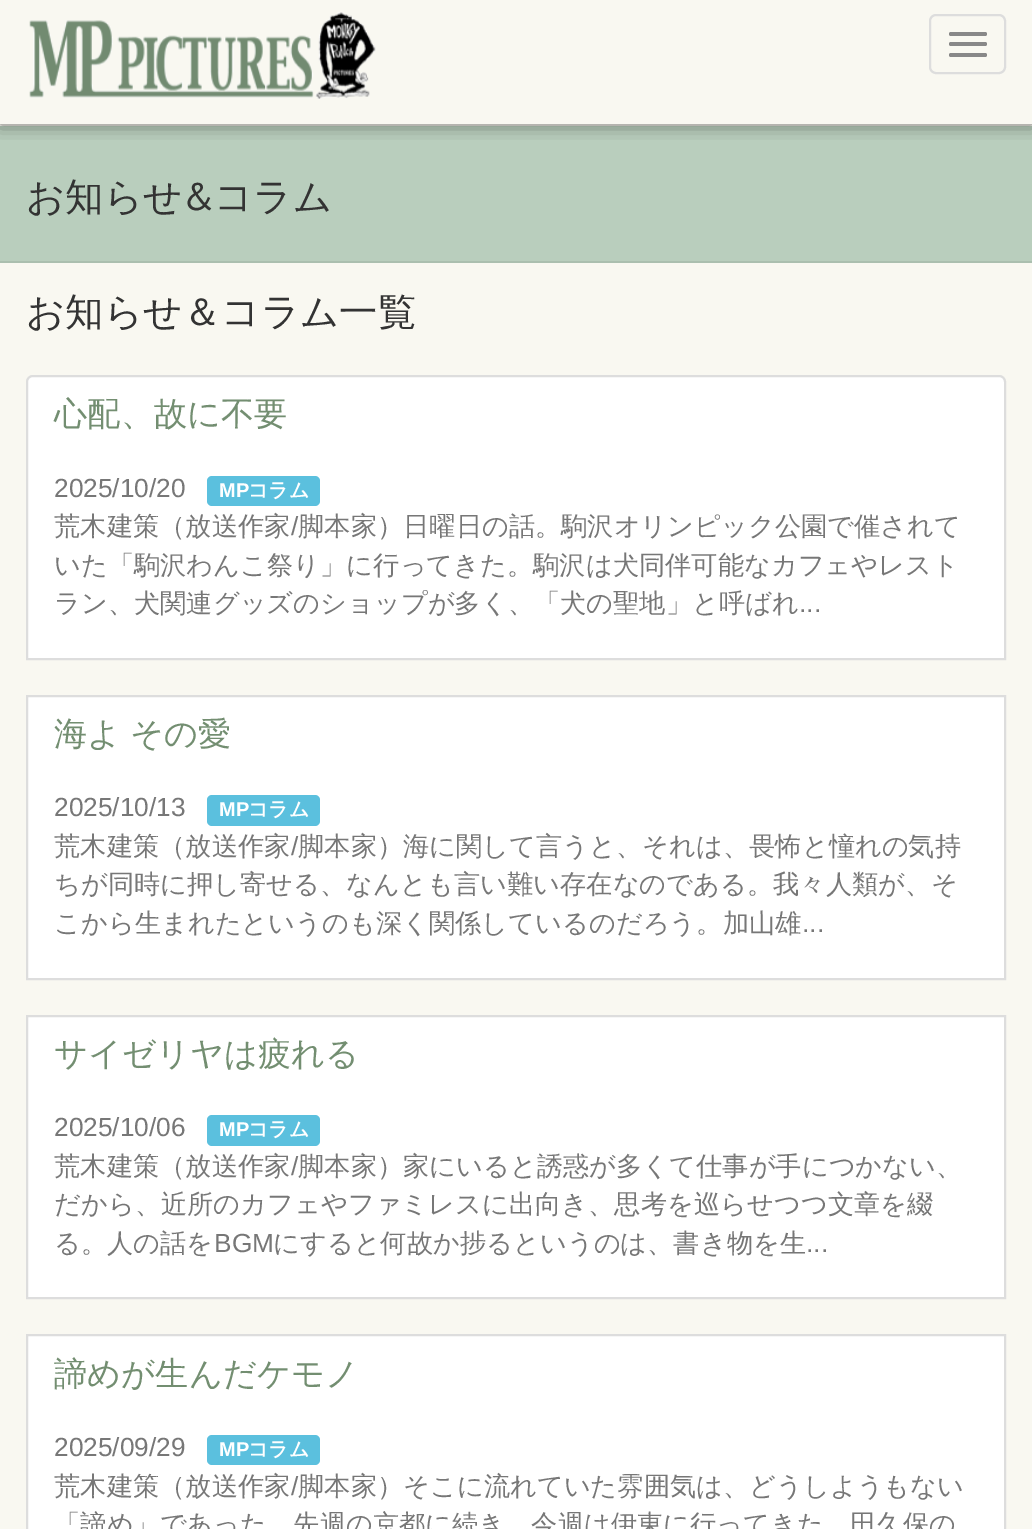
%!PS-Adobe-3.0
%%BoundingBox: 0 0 1032 1529
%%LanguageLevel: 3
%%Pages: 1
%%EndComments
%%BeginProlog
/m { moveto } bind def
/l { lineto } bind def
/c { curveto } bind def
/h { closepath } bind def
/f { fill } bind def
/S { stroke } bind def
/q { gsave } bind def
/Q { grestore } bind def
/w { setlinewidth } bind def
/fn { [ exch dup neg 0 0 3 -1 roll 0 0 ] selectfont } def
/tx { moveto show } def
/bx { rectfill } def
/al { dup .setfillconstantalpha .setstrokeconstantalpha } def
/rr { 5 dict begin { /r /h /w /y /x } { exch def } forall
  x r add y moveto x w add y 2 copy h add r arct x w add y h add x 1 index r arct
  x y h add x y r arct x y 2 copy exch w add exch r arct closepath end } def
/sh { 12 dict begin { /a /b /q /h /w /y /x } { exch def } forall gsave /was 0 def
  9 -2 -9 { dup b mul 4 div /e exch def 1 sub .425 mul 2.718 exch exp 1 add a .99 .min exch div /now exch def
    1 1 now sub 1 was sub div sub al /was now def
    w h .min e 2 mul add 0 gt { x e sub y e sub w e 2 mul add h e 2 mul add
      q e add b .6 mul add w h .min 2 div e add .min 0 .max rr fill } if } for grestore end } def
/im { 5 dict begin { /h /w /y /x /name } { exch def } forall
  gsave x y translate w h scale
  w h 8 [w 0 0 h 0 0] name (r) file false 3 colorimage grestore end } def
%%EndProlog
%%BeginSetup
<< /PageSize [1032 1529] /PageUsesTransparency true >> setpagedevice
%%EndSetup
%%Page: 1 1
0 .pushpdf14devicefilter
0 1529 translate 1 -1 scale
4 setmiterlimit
0.976 0.973 0.945 setrgbcolor
0 0 1032 1529 bx
0.725 0.808 0.741 setrgbcolor
0 126 1032 135 bx
q
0 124 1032 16 rectclip
0 setgray
0 0 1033 124 0 9 0.54 sh
Q
(image0.raw) 29 12 347 87 im
0.867 setgray
2 w
930 15 75 58 6 rr S
0.533 setgray
949 32 38 4 2 rr f
949 42 38 4 2 rr f
949 53 38 4 2 rr f
0.671 0.749 0.686 setrgbcolor
0 261 1032 2 bx
/WenQuanYiZenHei-Medium 38.5 fn
0.2 setgray
(お知らせ) 26 210 tx
/PTSans-Regular 38.5 fn
(&) 183 210 tx
/WenQuanYiZenHei-Medium 38.5 fn
(コラム) 214 210 tx
(お知らせ＆コラム一覧) 26 325 tx
1 setgray
33 376 m 999 376 l 1002.5 376 1005 378.5 1005 382 c 1005 659 l 27 659 l 27 382 l 27 378.5 29.5 376 33 376 c h q f Q
0.867 setgray
S
/WenQuanYiZenHei-Medium 33.25 fn
0.451 0.557 0.443 setrgbcolor
(心配、故に不要) 54 425 tx
/LiberationSans-Regular 26.25 fn
0.467 setgray
(2025/10/20) 54 497 tx
0.357 0.753 0.871 setrgbcolor
207 476 113 30 5 rr f
/LiberationSans-Bold 20 fn
1 setgray
(MP) 219 497 tx
/WenQuanYiZenHei-Bold 20 fn
(コラム) 248 497 tx
/WenQuanYiZenHei-Medium 26.25 fn
0.467 setgray
(荒木建策（放送作家) 54 535 tx
/LiberationSans-Regular 26.25 fn
(/) 291 535 tx
/WenQuanYiZenHei-Medium 26.25 fn
(脚本家）日曜日の話。駒沢オリンピック公園で催されて) 298 535 tx
(いた「駒沢わんこ祭り」に行ってきた。駒沢は犬同伴可能なカフェやレスト) 54 574 tx
(ラン、犬関連グッズのショップが多く、「犬の聖地」と呼ばれ) 54 612 tx
/LiberationSans-Regular 26.25 fn
(...) 799 612 tx
1 setgray
27 696 m 1005 696 l 1005 979 l 27 979 l h q f Q
0.867 setgray
S
/WenQuanYiZenHei-Medium 33.25 fn
0.451 0.557 0.443 setrgbcolor
54 745 m -1 0 32 (海よ その愛) widthshow
/LiberationSans-Regular 26.25 fn
0.467 setgray
(2025/10/13) 54 816 tx
0.357 0.753 0.871 setrgbcolor
207 795 113 31 5 rr f
/LiberationSans-Bold 20 fn
1 setgray
(MP) 219 816 tx
/WenQuanYiZenHei-Bold 20 fn
(コラム) 248 816 tx
/WenQuanYiZenHei-Medium 26.25 fn
0.467 setgray
(荒木建策（放送作家) 54 855 tx
/LiberationSans-Regular 26.25 fn
(/) 291 855 tx
/WenQuanYiZenHei-Medium 26.25 fn
(脚本家）海に関して言うと、それは、畏怖と憧れの気持) 298 855 tx
(ちが同時に押し寄せる、なんとも言い難い存在なのである。我々人類が、そ) 54 893 tx
(こから生まれたというのも深く関係しているのだろう。加山雄) 54 932 tx
/LiberationSans-Regular 26.25 fn
(...) 802 932 tx
1 setgray
27 1016 m 1005 1016 l 1005 1298 l 27 1298 l h q f Q
0.867 setgray
S
/WenQuanYiZenHei-Medium 33.25 fn
0.451 0.557 0.443 setrgbcolor
(サイゼリヤは疲れる) 54 1065 tx
/LiberationSans-Regular 26.25 fn
0.467 setgray
(2025/10/06) 54 1136 tx
0.357 0.753 0.871 setrgbcolor
207 1115 113 31 5 rr f
/LiberationSans-Bold 20 fn
1 setgray
(MP) 219 1136 tx
/WenQuanYiZenHei-Bold 20 fn
(コラム) 248 1136 tx
/WenQuanYiZenHei-Medium 26.25 fn
0.467 setgray
(荒木建策（放送作家) 54 1175 tx
/LiberationSans-Regular 26.25 fn
(/) 291 1175 tx
/WenQuanYiZenHei-Medium 26.25 fn
(脚本家）家にいると誘惑が多くて仕事が手につかない、) 298 1175 tx
(だから、近所のカフェやファミレスに出向き、思考を巡らせつつ文章を綴) 54 1213 tx
(る。人の話を) 54 1252 tx
/LiberationSans-Regular 26.25 fn
(BGM) 214 1252 tx
/WenQuanYiZenHei-Medium 26.25 fn
(にすると何故か捗るというのは、書き物を生) 273 1252 tx
/LiberationSans-Regular 26.25 fn
(...) 806 1252 tx
1 setgray
27 1335 m 1005 1335 l 1005 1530 l 27 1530 l h q f Q
0.867 setgray
S
/WenQuanYiZenHei-Medium 33.25 fn
0.451 0.557 0.443 setrgbcolor
(諦めが生んだケモノ) 54 1385 tx
/LiberationSans-Regular 26.25 fn
0.467 setgray
(2025/09/29) 54 1456 tx
0.357 0.753 0.871 setrgbcolor
207 1435 113 30 5 rr f
/LiberationSans-Bold 20 fn
1 setgray
(MP) 219 1456 tx
/WenQuanYiZenHei-Bold 20 fn
(コラム) 248 1456 tx
/WenQuanYiZenHei-Medium 26.25 fn
0.467 setgray
(荒木建策（放送作家) 54 1495 tx
/LiberationSans-Regular 26.25 fn
(/) 291 1495 tx
/WenQuanYiZenHei-Medium 26.25 fn
(脚本家）そこに流れていた雰囲気は、どうしようもない) 298 1495 tx
(「諦め」であった。先週の京都に続き、今週は伊東に行ってきた。田久保の) 54 1533 tx
.poppdf14devicefilter showpage
%%EOF
